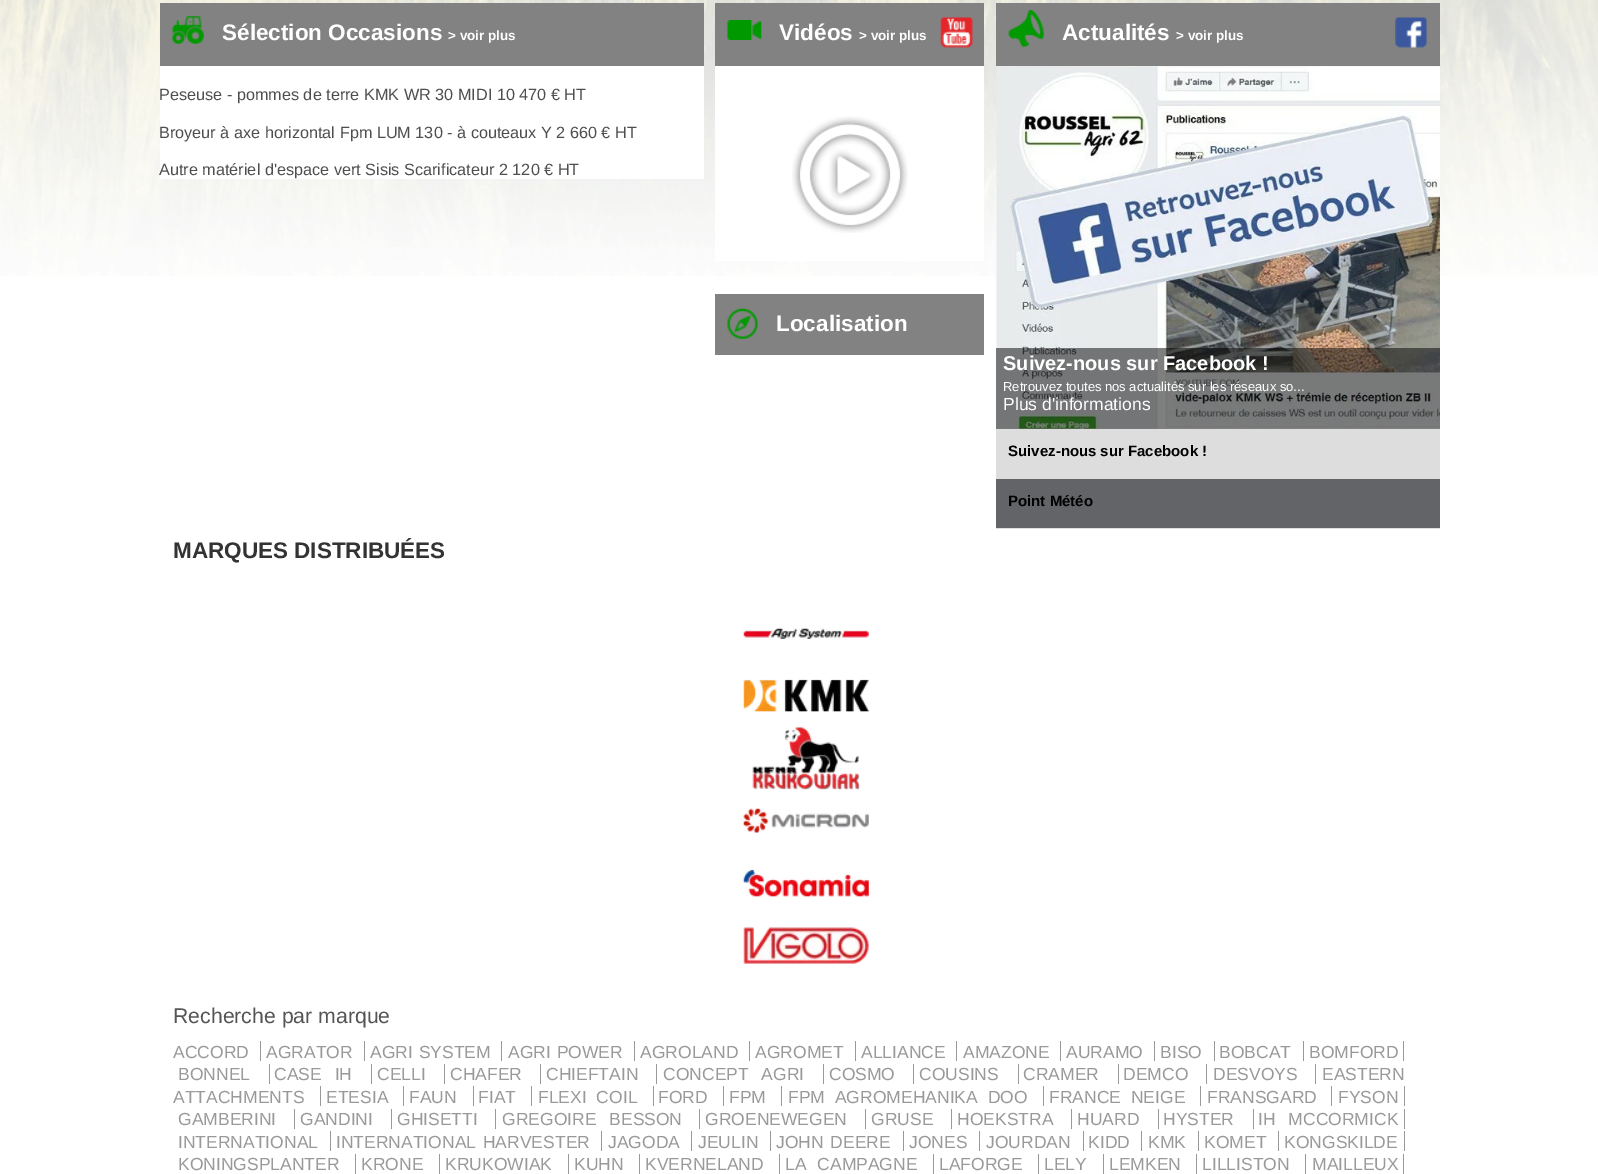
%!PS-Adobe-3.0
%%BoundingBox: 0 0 1598 1174
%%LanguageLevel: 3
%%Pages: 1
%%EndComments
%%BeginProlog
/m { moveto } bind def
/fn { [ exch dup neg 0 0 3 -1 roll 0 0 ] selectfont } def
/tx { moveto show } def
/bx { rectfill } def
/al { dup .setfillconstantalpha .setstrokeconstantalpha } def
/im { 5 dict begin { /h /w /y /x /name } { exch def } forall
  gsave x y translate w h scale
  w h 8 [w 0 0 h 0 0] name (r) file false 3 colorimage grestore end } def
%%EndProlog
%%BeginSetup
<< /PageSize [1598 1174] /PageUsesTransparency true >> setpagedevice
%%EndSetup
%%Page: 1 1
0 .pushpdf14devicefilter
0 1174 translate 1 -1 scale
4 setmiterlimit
1 setgray
0 0 1598 1174 bx
(image0.raw) 0 0 1598 276 im
0.51 setgray
160 3 544 63 bx
(image1.raw) 172 16 32 28 im
/LiberationSans-Bold 22.5 fn
1 setgray
(Sélection Occasions) 222 40 tx
/LiberationSans-Bold 13.5 fn
(> voir plus) 448 40 tx
160 66 544 113 bx
/LiberationSans-Regular 16.25 fn
0.306 setgray
(Peseuse - pommes de terre KMK WR 30 MIDI 10 470 € HT) 159 100 tx
(Broyeur à axe horizontal Fpm LUM 130 - à couteaux Y 2 660 € HT) 159 138 tx
(Autre matériel d'espace vert Sisis Scarificateur 2 120 € HT) 159 175 tx
0.51 setgray
715 3 269 63 bx
(image2.raw) 727 20 35 20 im
/LiberationSans-Bold 22.5 fn
1 setgray
(Vidéos) 779 40 tx
/LiberationSans-Bold 13.5 fn
(> voir plus) 859 40 tx
(image3.raw) 940 17 33 31 im
715 66 269 195 bx
(image4.raw) 792 116 116 117 im
0.51 setgray
715 294 269 61 bx
(image5.raw) 727 308 31 31 im
/LiberationSans-Bold 22.5 fn
1 setgray
(Localisation) 776 331 tx
0.51 setgray
996 3 444 63 bx
(image6.raw) 1008 10 36 38 im
1 setgray
(Actualités) 1062 40 tx
/LiberationSans-Bold 13.5 fn
(> voir plus) 1176 40 tx
(image7.raw) 1395 17 33 31 im
(image8.raw) 996 66 444 363 im
0.5 al
0 setgray
996 348 444 81 bx
/LiberationSans-Bold 20 fn
1 al
1 setgray
(Suivez-nous sur Facebook !) 1003 370 tx
/LiberationSans-Regular 13 fn
(Retrouvez toutes nos actualités sur les réseaux so...) 1003 391 tx
/LiberationSans-Regular 17.5 fn
(Plus d'informations) 1003 410 tx
0.867 setgray
996 429 444 50 bx
/LiberationSans-Bold 15 fn
0 setgray
(Suivez-nous sur Facebook !) 1008 456 tx
0.388 0.392 0.404 setrgbcolor
996 479 444 49 bx
0.871 setgray
996 528 444 1 bx
0 setgray
(Point Météo) 1008 506 tx
/LiberationSans-Bold 22.5 fn
0.2 setgray
(MARQUES DISTRIBUÉES) 173 558 tx
(image9.raw) 743 628 126 11 im
(image10.raw) 743 679 126 33 im
(image11.raw) 752 727 108 63 im
(image12.raw) 743 808 126 25 im
(image13.raw) 743 869 126 28 im
(image14.raw) 743 927 126 37 im
/LiberationSans-Regular 21.25 fn
0.333 setgray
(Recherche par marque) 173 1023 tx
/LiberationSans-Regular 17.5 fn
0.6 setgray
(ACCORD) 173 1058 tx
260 1041 1 20 bx
(AGRATOR) 266 1058 tx
364 1041 1 20 bx
370 1058 m 1 0 32 (AGRI SYSTEM) widthshow
501 1041 1 20 bx
508 1058 m 1 0 32 (AGRI POWER) widthshow
634 1041 1 20 bx
(AGROLAND) 640 1058 tx
749 1041 1 20 bx
(AGROMET) 755 1058 tx
855 1041 1 20 bx
(ALLIANCE) 861 1058 tx
956 1041 1 20 bx
(AMAZONE) 963 1058 tx
1060 1041 1 20 bx
(AURAMO) 1066 1058 tx
1154 1041 1 20 bx
(BISO) 1160 1058 tx
1214 1041 1 20 bx
(BOBCAT) 1219 1058 tx
1303 1041 1 20 bx
(BOMFORD) 1309 1058 tx
1403 1041 1 20 bx
(BONNEL) 178 1080 tx
269 1064 1 20 bx
274 1080 m 8 0 32 (CASE IH) widthshow
371 1064 1 20 bx
(CELLI) 377 1080 tx
444 1064 1 20 bx
(CHAFER) 450 1080 tx
540 1064 1 20 bx
(CHIEFTAIN) 546 1080 tx
656 1064 1 20 bx
663 1080 m 8 0 32 (CONCEPT AGRI) widthshow
823 1064 1 20 bx
(COSMO) 829 1080 tx
913 1064 1 20 bx
(COUSINS) 919 1080 tx
1018 1064 1 20 bx
(CRAMER) 1023 1080 tx
1118 1064 1 20 bx
(DEMCO) 1123 1080 tx
1206 1064 1 20 bx
(DESVOYS) 1213 1080 tx
1315 1064 1 20 bx
(EASTERN) 1322 1080 tx
(ATTACHMENTS) 173 1103 tx
320 1086 1 20 bx
(ETESIA) 326 1103 tx
403 1086 1 20 bx
(FAUN) 409 1103 tx
473 1086 1 20 bx
(FIAT) 478 1103 tx
531 1086 1 20 bx
538 1103 m 5 0 32 (FLEXI COIL) widthshow
653 1086 1 20 bx
(FORD) 658 1103 tx
723 1086 1 20 bx
(FPM) 729 1103 tx
781 1086 1 20 bx
788 1103 m 5 0 32 (FPM AGROMEHANIKA DOO) widthshow
1043 1086 1 20 bx
1049 1103 m 5 0 32 (FRANCE NEIGE) widthshow
1200 1086 1 20 bx
(FRANSGARD) 1207 1103 tx
1331 1086 1 20 bx
(FYSON) 1338 1103 tx
1404 1086 1 20 bx
(GAMBERINI) 178 1125 tx
294 1109 1 20 bx
(GANDINI) 300 1125 tx
391 1109 1 20 bx
(GHISETTI) 397 1125 tx
495 1109 1 20 bx
502 1125 m 8 0 32 (GREGOIRE BESSON) widthshow
699 1109 1 20 bx
(GROENEWEGEN) 705 1125 tx
865 1109 1 20 bx
(GRUSE) 871 1125 tx
951 1109 1 20 bx
(HOEKSTRA) 957 1125 tx
1071 1109 1 20 bx
(HUARD) 1077 1125 tx
1158 1109 1 20 bx
(HYSTER) 1163 1125 tx
1253 1109 1 20 bx
1258 1125 m 8 0 32 (IH MCCORMICK) widthshow
1404 1109 1 20 bx
(INTERNATIONAL) 178 1148 tx
330 1131 1 20 bx
336 1148 m 2 0 32 (INTERNATIONAL HARVESTER) widthshow
601 1131 1 20 bx
(JAGODA) 608 1148 tx
691 1131 1 20 bx
(JEULIN) 698 1148 tx
770 1131 1 20 bx
776 1148 m 2 0 32 (JOHN DEERE) widthshow
903 1131 1 20 bx
(JONES) 909 1148 tx
979 1131 1 20 bx
(JOURDAN) 986 1148 tx
1083 1131 1 20 bx
(KIDD) 1088 1148 tx
1141 1131 1 20 bx
(KMK) 1148 1148 tx
1198 1131 1 20 bx
(KOMET) 1204 1148 tx
1278 1131 1 20 bx
(KONGSKILDE) 1284 1148 tx
1404 1131 1 20 bx
(KONINGSPLANTER) 178 1170 tx
355 1154 1 20 bx
(KRONE) 361 1170 tx
439 1154 1 20 bx
(KRUKOWIAK) 445 1170 tx
568 1154 1 20 bx
(KUHN) 574 1170 tx
639 1154 1 20 bx
(KVERNELAND) 645 1170 tx
779 1154 1 20 bx
785 1170 m 6 0 32 (LA CAMPAGNE) widthshow
933 1154 1 20 bx
(LAFORGE) 939 1170 tx
1038 1154 1 20 bx
(LELY) 1044 1170 tx
1103 1154 1 20 bx
(LEMKEN) 1109 1170 tx
1196 1154 1 20 bx
(LILLISTON) 1202 1170 tx
1305 1154 1 20 bx
(MAILLEUX) 1312 1170 tx
1403 1154 1 20 bx
.poppdf14devicefilter showpage
%%EOF
